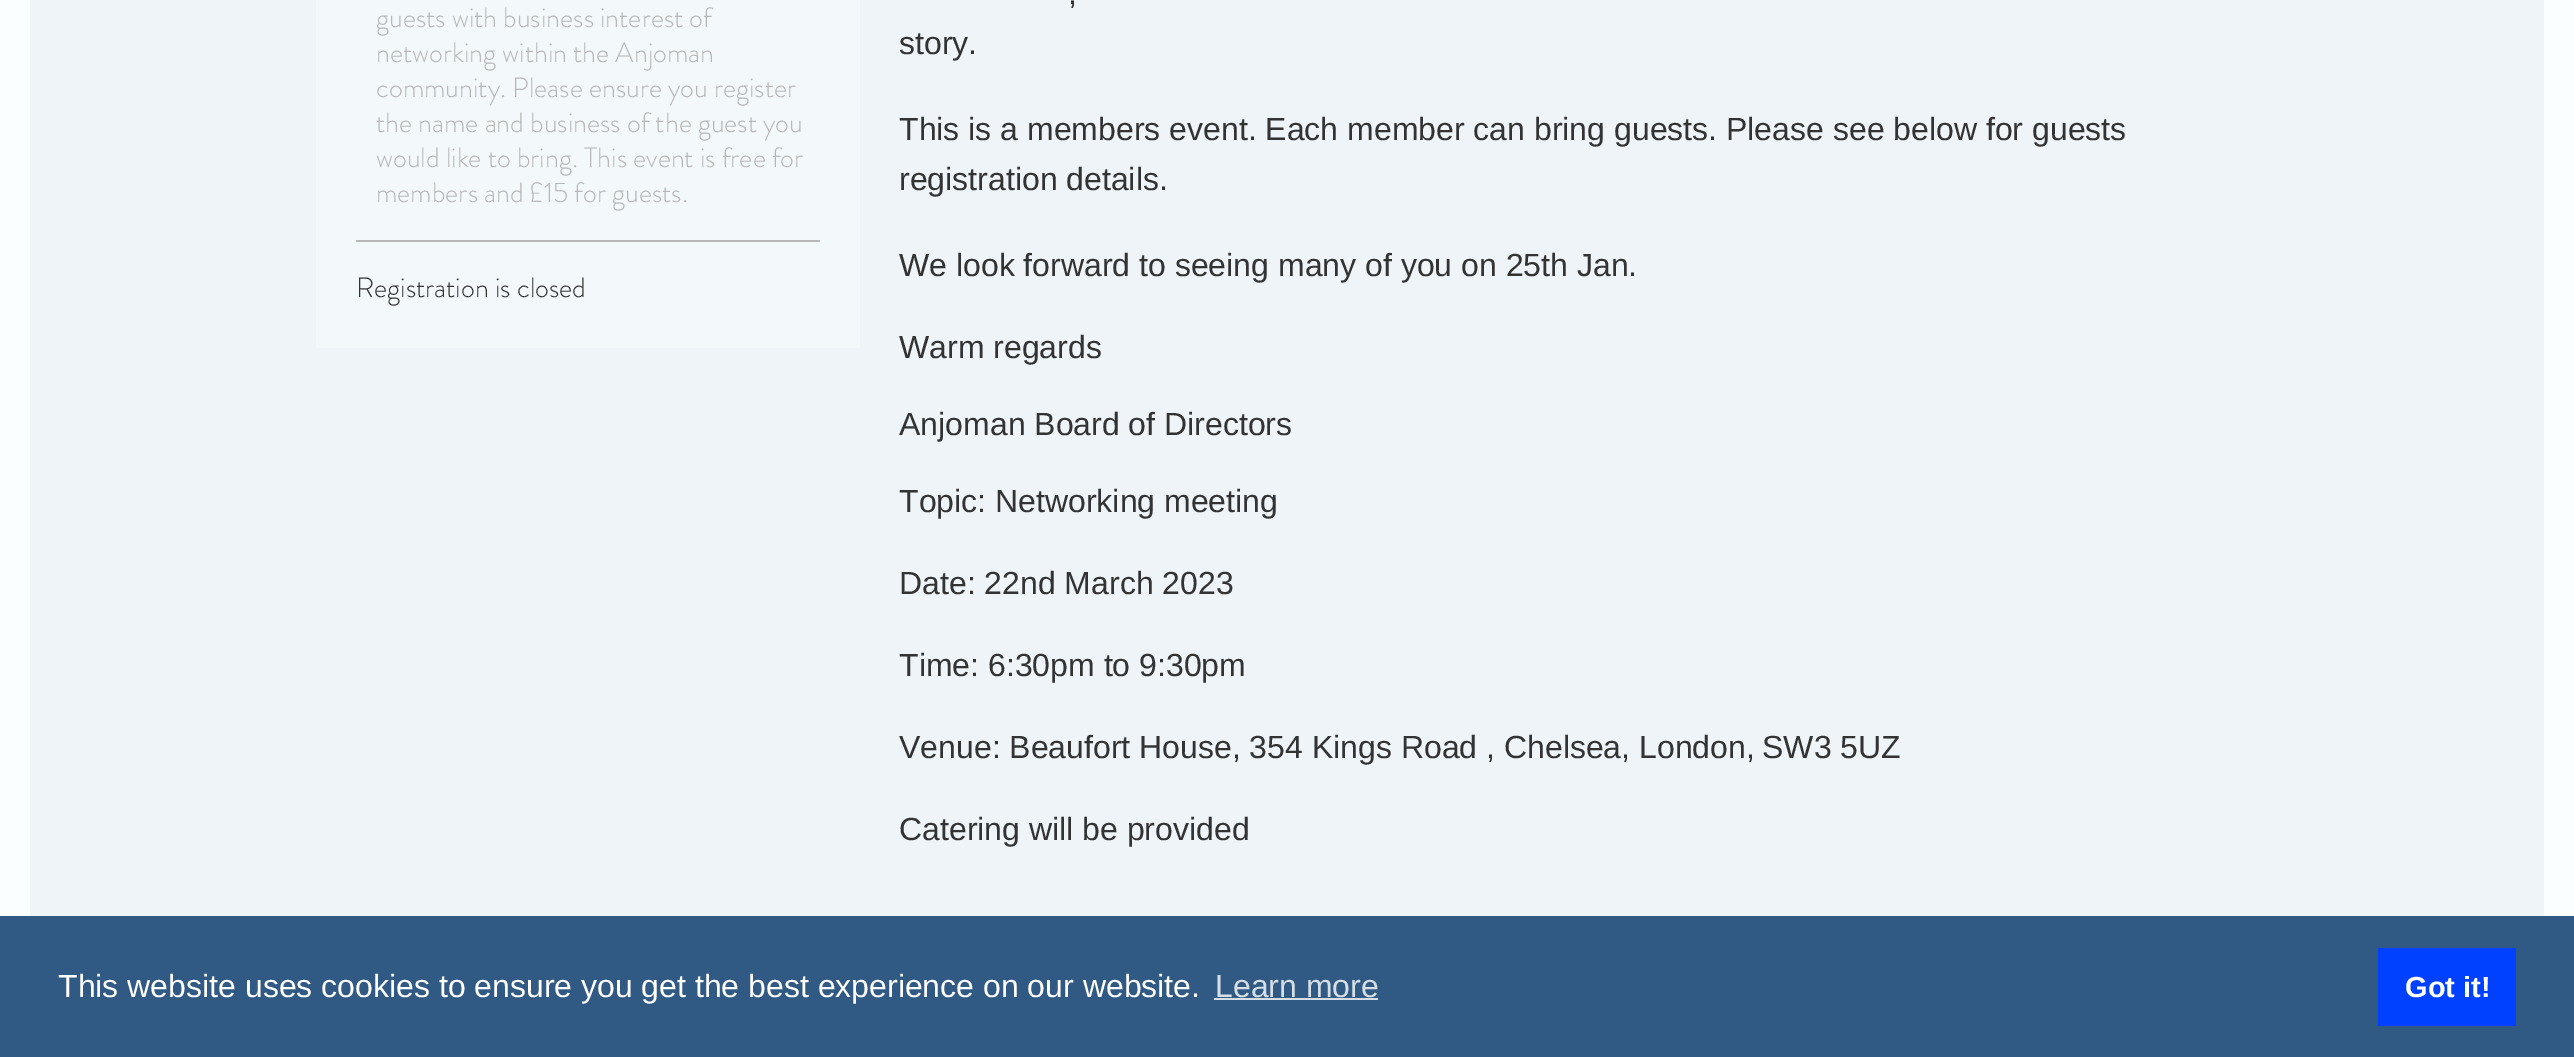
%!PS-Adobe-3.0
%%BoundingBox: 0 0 2574 1057
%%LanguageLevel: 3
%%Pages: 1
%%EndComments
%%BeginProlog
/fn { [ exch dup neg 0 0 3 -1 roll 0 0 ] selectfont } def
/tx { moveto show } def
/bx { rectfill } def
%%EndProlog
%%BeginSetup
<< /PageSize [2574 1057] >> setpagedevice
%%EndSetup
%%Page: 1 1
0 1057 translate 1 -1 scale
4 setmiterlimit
0.984 0.996 1 setrgbcolor
0 0 2574 1057 bx
0.933 0.957 0.969 setrgbcolor
30 0 2514 916 bx
0.953 0.973 0.98 setrgbcolor
316 0 544 348 bx
/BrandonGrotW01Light-Light 28 fn
0.718 setgray
(guests with business interest of) 376 27 tx
(networking within the Anjoman) 376 62 tx
(community. Please ensure you register) 376 97 tx
(the name and business of the guest you) 376 132 tx
(would like to bring. This event is free for) 376 167 tx
(members and £15 for guests.) 376 202 tx
356 240 464 2 bx
0.2 setgray
(Registration is closed) 356 297 tx
/LiberationSans-Regular 32 fn
(,) 1068 4 tx
(story.) 899 54 tx
(This is a members event. Each member can bring guests. Please see below for guests) 899 140 tx
(registration details.) 899 190 tx
(We look forward to seeing many of you on 25th Jan.) 899 276 tx
(Warm regards) 899 358 tx
(Anjoman Board of Directors) 899 435 tx
(Topic: Networking meeting) 899 512 tx
(Date: 22nd March 2023) 899 594 tx
(Time: 6:30pm to 9:30pm) 899 676 tx
(Venue: Beaufort House, 354 Kings Road , Chelsea, London,) 899 758 tx
(SW3 5UZ) 1762 758 tx
(Catering will be provided) 899 840 tx
0.188 0.349 0.514 setrgbcolor
0 916 2574 141 bx
1 setgray
(This website uses cookies to ensure you get the best experience on our website.) 58 997 tx
0.839 0.871 0.902 setrgbcolor
(Learn more) 1215 997 tx
1214 998 164 2 bx
0 0.255 1 setrgbcolor
2378 948 138 78 bx
/LiberationSans-Bold 29 fn
1 setgray
(Got it!) 2405 997 tx
showpage
%%EOF
